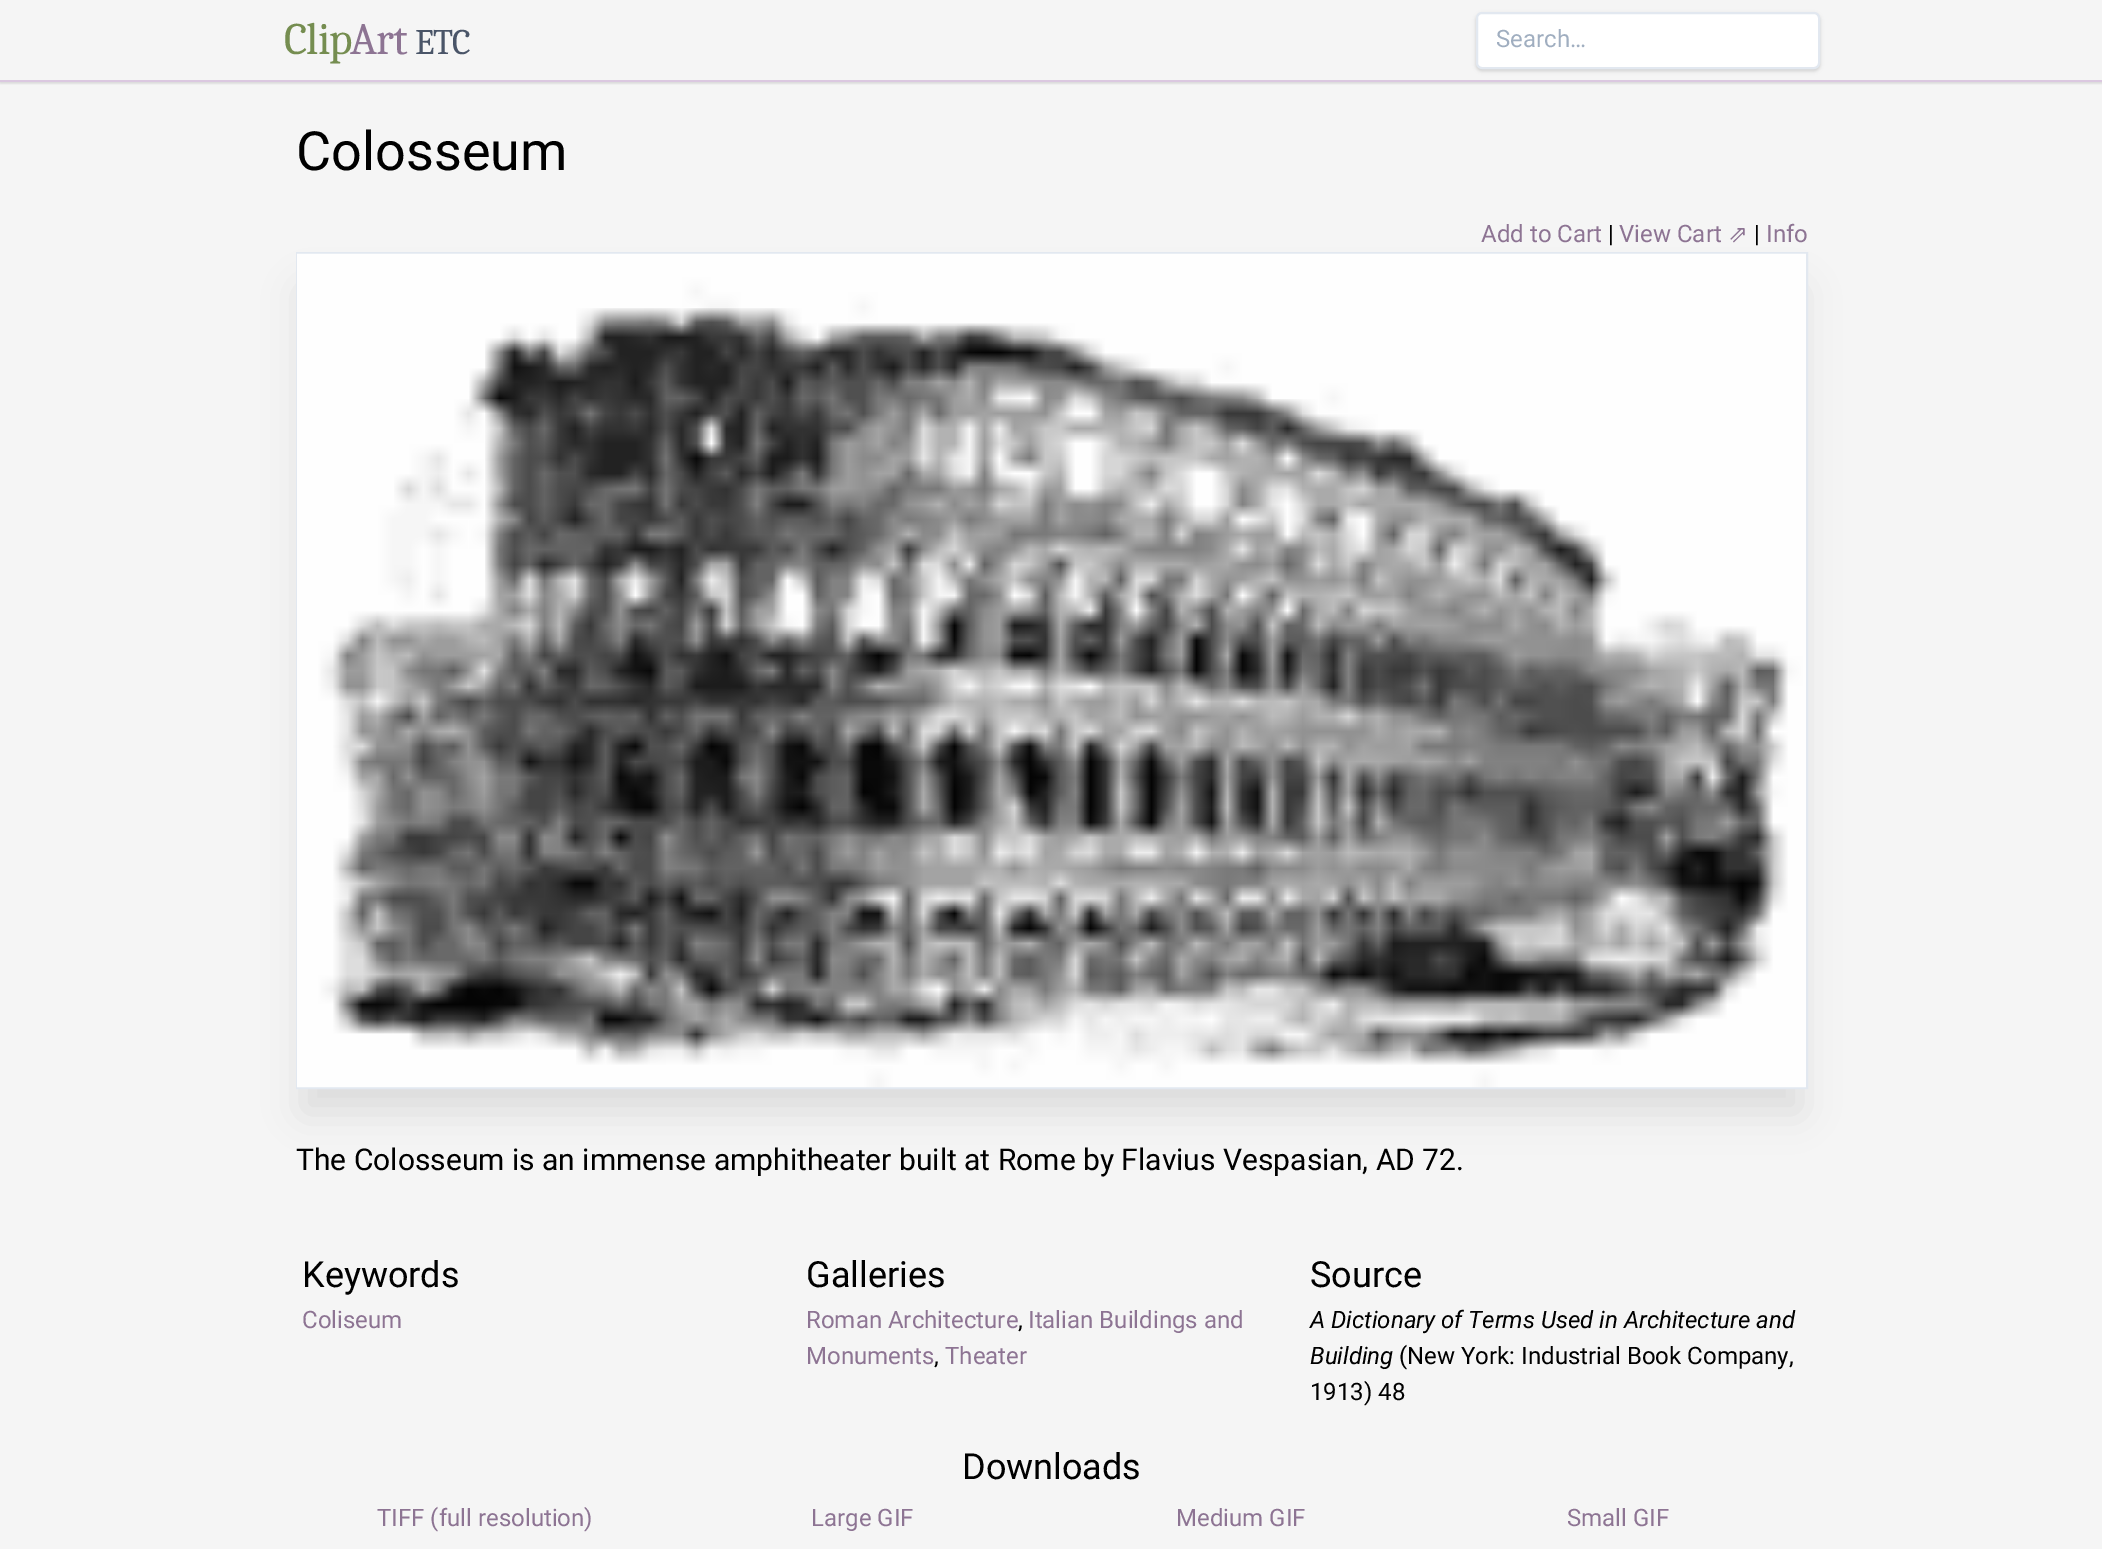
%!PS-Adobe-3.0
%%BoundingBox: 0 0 2102 1549
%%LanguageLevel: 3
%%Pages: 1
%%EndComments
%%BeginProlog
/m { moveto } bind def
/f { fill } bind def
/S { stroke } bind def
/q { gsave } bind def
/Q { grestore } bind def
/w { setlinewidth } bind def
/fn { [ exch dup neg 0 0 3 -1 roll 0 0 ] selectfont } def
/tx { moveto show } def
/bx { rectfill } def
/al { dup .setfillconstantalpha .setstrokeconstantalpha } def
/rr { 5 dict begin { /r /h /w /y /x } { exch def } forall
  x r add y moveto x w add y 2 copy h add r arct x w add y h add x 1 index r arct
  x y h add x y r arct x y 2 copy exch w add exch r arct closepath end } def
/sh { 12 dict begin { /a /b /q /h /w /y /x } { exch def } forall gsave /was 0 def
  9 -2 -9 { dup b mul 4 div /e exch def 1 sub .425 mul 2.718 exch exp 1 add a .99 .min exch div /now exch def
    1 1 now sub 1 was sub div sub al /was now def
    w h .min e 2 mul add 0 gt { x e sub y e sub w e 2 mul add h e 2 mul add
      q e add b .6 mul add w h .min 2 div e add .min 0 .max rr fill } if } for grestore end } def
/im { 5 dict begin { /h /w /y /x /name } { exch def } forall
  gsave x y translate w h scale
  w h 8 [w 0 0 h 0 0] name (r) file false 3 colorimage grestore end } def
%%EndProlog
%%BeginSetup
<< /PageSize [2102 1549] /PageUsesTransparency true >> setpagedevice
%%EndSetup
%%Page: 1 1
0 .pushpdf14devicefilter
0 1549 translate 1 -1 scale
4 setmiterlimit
0.961 setgray
0 0 2102 1549 bx
q
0 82 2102 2 rectclip
0 setgray
0 2 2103 81 0 1.5 0.06 sh
Q
q
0 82 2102 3 rectclip
0 setgray
0 2 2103 81 0 2 0.1 sh
Q
0.859 0.784 0.878 setrgbcolor
0 80 2102 2 bx
/Caladea-Regular 45 fn
0.459 0.553 0.314 setrgbcolor
284 54 m -1 0 (Clip) ashow
0.553 0.455 0.576 setrgbcolor
350 54 m -1 0 (Art) ashow
/Caladea-Regular 36 fn
0.29 0.333 0.408 setrgbcolor
415 54 m -1 0 (ETC) ashow
0 setgray
1476 14 344 57 6 1.5 0.06 sh
1476 14 344 57 6 2 0.1 sh
1 setgray
1477 13 342 55 5 rr q f Q
0.886 0.91 0.941 setrgbcolor
2 w
S
/Roboto-Regular 24 fn
0.627 0.682 0.753 setrgbcolor
(Search…) 1496 47 tx
/Roboto-Regular 54 fn
0 setgray
(Colosseum) 296 170 tx
/Roboto-Regular 24 fn
0.553 0.455 0.576 setrgbcolor
(Add to Cart) 1481 242 tx
0 setgray
(|) 1608 242 tx
0.553 0.455 0.576 setrgbcolor
(View Cart) 1619 242 tx
/DejaVuSans-Regular 24 fn
(⇗) 1728 242 tx
/Roboto-Regular 24 fn
0 setgray
(|) 1754 242 tx
0.553 0.455 0.576 setrgbcolor
(Info) 1766 242 tx
0 setgray
303 290 1497 822 0 19 0.1 sh
0.886 0.91 0.941 setrgbcolor
297 253 1510 835 rectstroke
(image0.raw) 297 253 1509 835 im
/Roboto-Regular 30 fn
0 setgray
(The Colosseum is an immense amphitheater built at Rome by Flavius Vespasian, AD 72.) 296 1170 tx
/Roboto-Regular 36 fn
(Keywords) 302 1287 tx
/Roboto-Regular 24 fn
0.553 0.455 0.576 setrgbcolor
(Coliseum) 302 1328 tx
/Roboto-Regular 36 fn
0 setgray
(Galleries) 806 1287 tx
/Roboto-Regular 24 fn
0.553 0.455 0.576 setrgbcolor
(Roman Architecture) 806 1328 tx
0 setgray
(,) 1018 1328 tx
0.553 0.455 0.576 setrgbcolor
(Italian Buildings and) 1028 1328 tx
(Monuments) 806 1364 tx
0 setgray
(,) 934 1364 tx
0.553 0.455 0.576 setrgbcolor
(Theater) 945 1364 tx
/Roboto-Regular 36 fn
0 setgray
(Source) 1310 1287 tx
/Roboto-Italic 24 fn
(A Dictionary of Terms Used in Architecture and) 1310 1328 tx
(Building) 1310 1364 tx
/Roboto-Regular 24 fn
(\(New York: Industrial Book Company,) 1399 1364 tx
(1913\) 48) 1310 1400 tx
/Roboto-Regular 36 fn
(Downloads) 962 1479 tx
/Roboto-Regular 24 fn
0.553 0.455 0.576 setrgbcolor
(TIFF \(full resolution\)) 377 1526 tx
(Large GIF) 811 1526 tx
(Medium GIF) 1176 1526 tx
(Small GIF) 1567 1526 tx
.poppdf14devicefilter showpage
%%EOF
